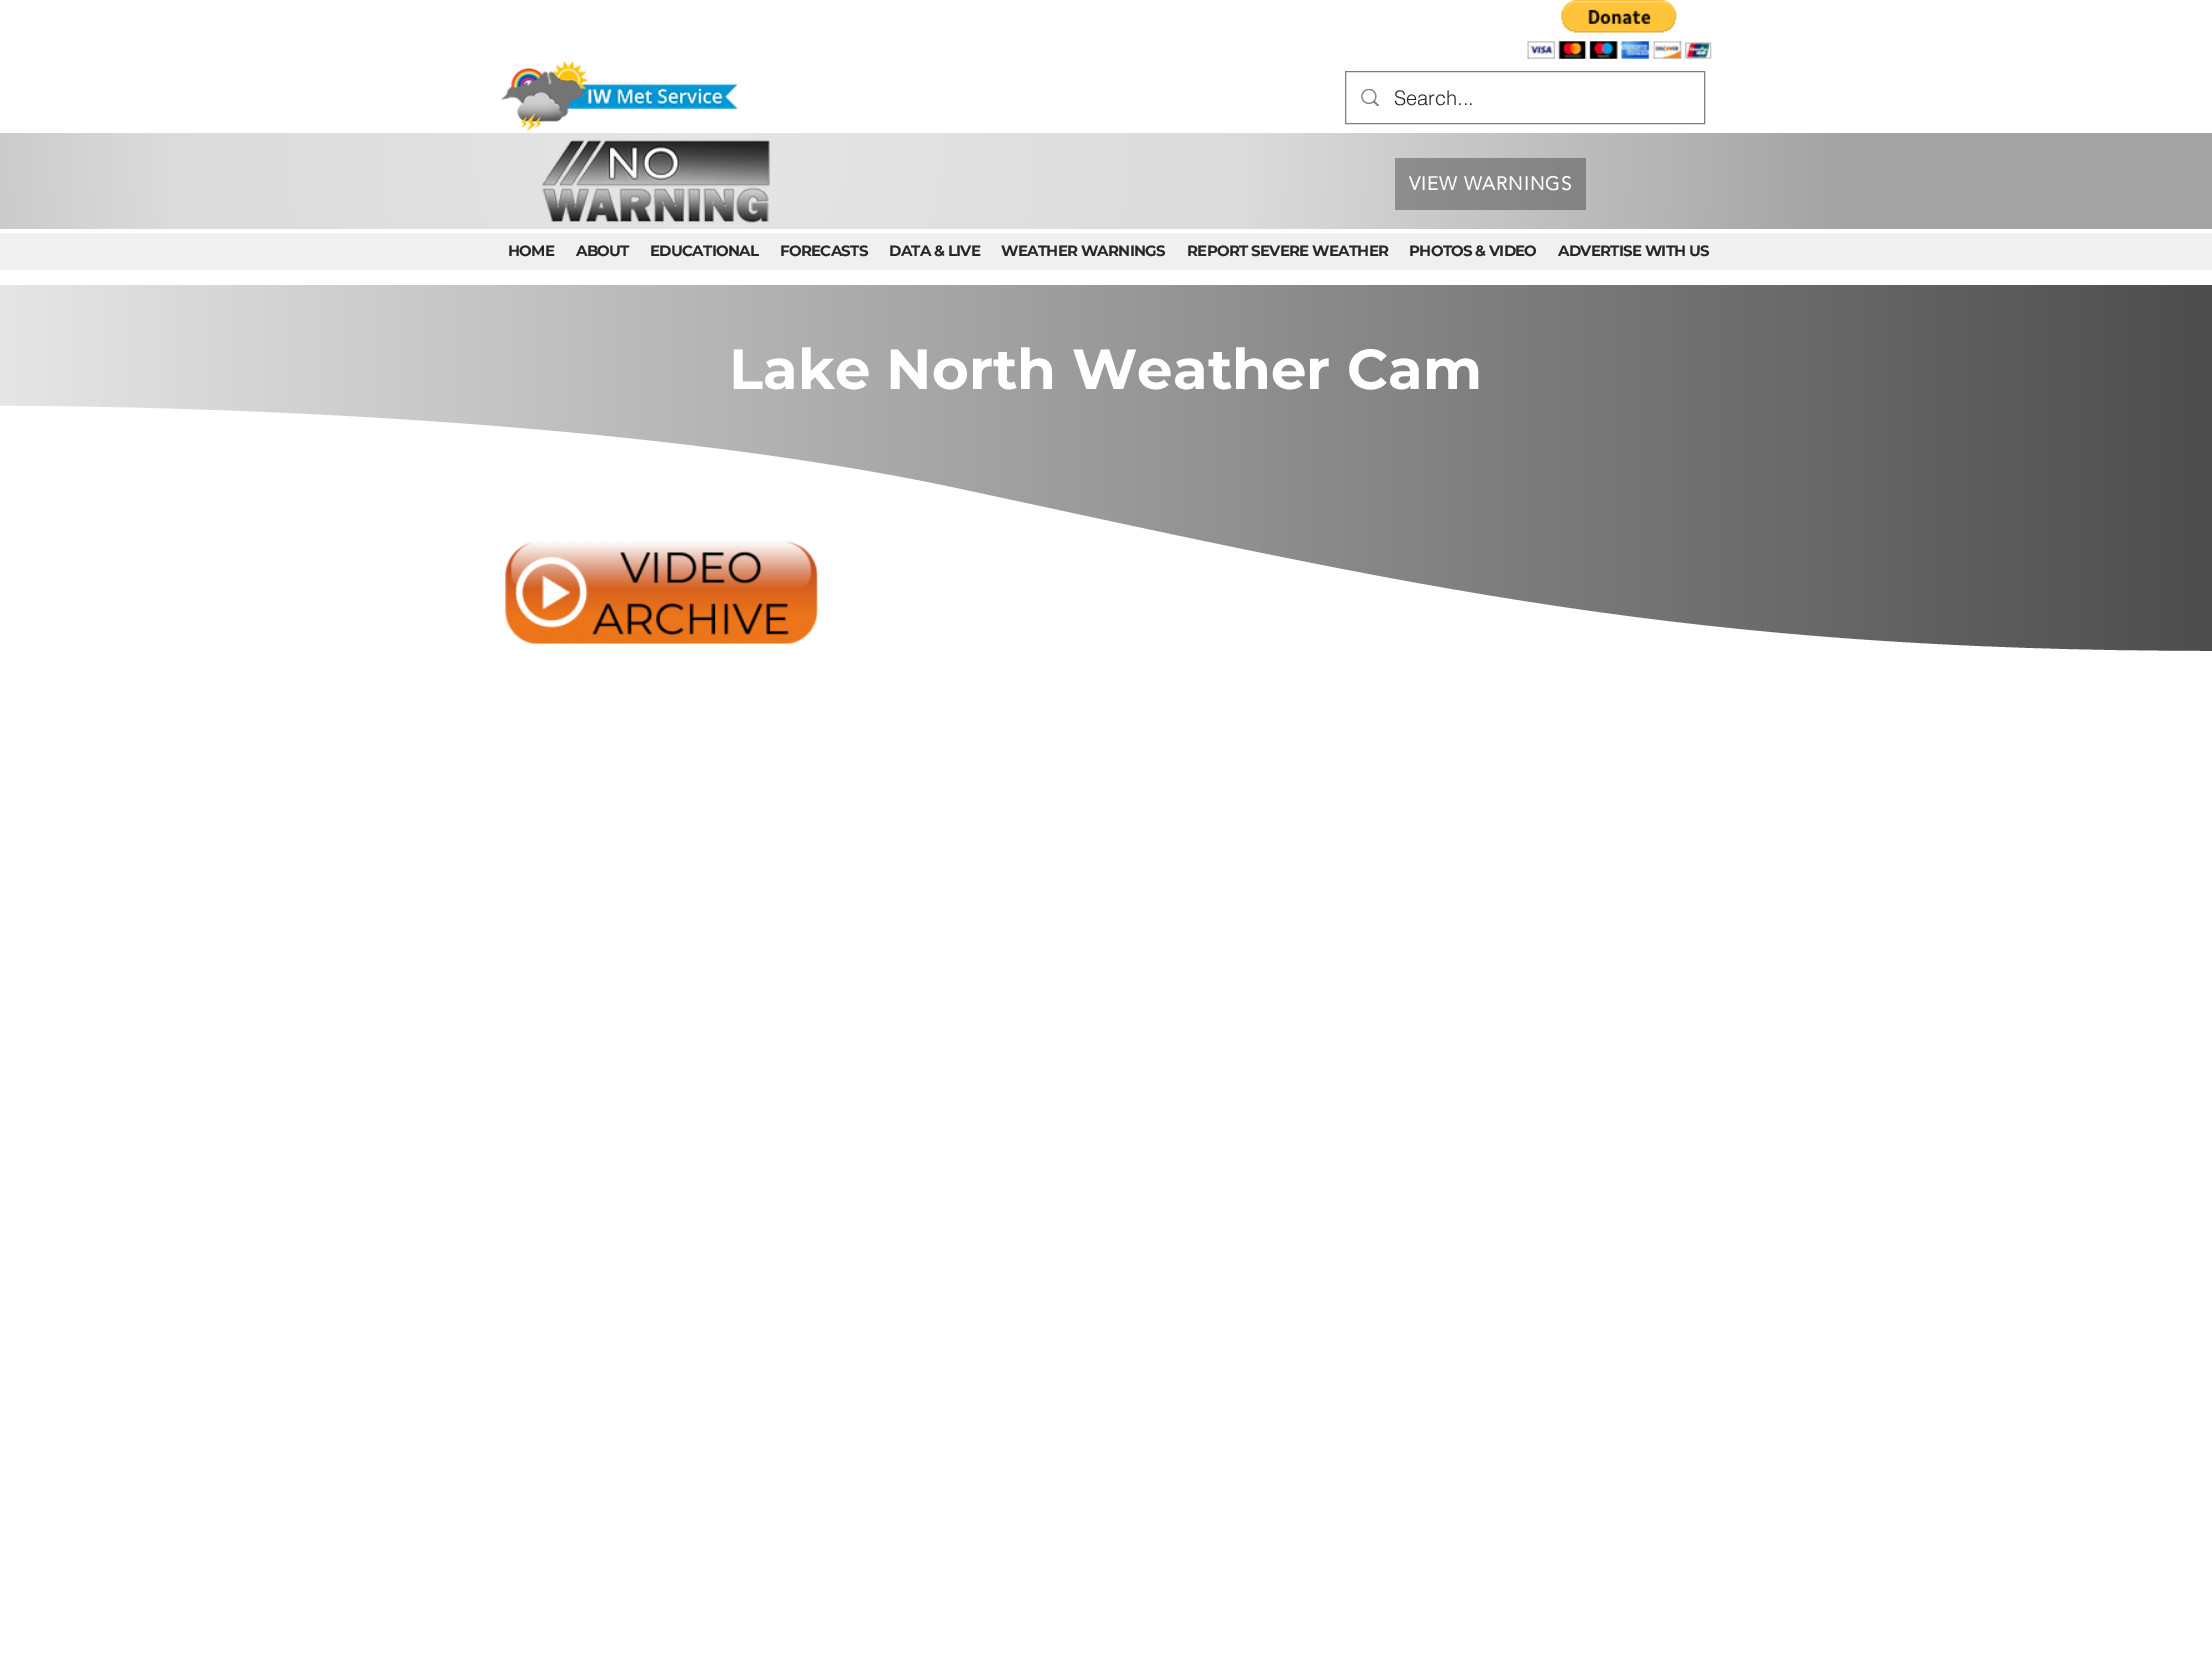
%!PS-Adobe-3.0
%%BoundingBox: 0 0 2212 1674
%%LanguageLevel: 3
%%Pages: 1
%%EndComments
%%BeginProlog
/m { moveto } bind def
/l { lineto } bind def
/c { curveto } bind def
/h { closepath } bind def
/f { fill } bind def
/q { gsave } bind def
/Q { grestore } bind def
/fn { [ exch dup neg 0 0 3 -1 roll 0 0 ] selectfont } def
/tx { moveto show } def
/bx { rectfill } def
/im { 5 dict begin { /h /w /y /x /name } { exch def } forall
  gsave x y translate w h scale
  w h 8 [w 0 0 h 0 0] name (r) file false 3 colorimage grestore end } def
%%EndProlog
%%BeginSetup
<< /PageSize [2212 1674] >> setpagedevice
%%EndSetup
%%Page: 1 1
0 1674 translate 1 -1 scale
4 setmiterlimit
1 setgray
0 0 2212 1674 bx
(image0.raw) 1527 0 185 59 im
(image1.raw) 501 61 237 71 im
0.494 setgray
1345.5 71.5 359 52 rectstroke
(image2.raw) 1361 89 18 17 im
/helvetica-Light 20 fn
0.157 setgray
(Search...) 1394 105 tx
q 0 133 m 2212 133 l 2212 229 l 0 229 l h clip newpath 708 143 translate 1507 1507 scale
<< /ShadingType 3 /ColorSpace /DeviceRGB /Coords [0 0 0 0 0 1] /Extend [true true] /Function << /FunctionType 3 /Domain [0 1] /Functions [<< /FunctionType 2 /Domain [0 1] /C0 [0.902 0.902 0.902] /C1 [0.859 0.859 0.859] /N 1 >> << /FunctionType 2 /Domain [0 1] /C0 [0.859 0.859 0.859] /C1 [0.639 0.639 0.639] /N 1 >> << /FunctionType 2 /Domain [0 1] /C0 [0.639 0.639 0.639] /C1 [0.639 0.639 0.639] /N 1 >>] /Bounds [0.36 0.76] /Encode [0 1 0 1 0 1] >> >> shfill Q
q 1395 158 m 1586 158 l 1586 210 l 1395 210 l h clip newpath 708 143 translate 1507 1507 scale
<< /ShadingType 3 /ColorSpace /DeviceRGB /Coords [0 0 0 0 0 1] /Extend [true true] /Function << /FunctionType 3 /Domain [0 1] /Functions [<< /FunctionType 2 /Domain [0 1] /C0 [0.62 0.616 0.616] /C1 [0.592 0.588 0.588] /N 1 >> << /FunctionType 2 /Domain [0 1] /C0 [0.592 0.588 0.588] /C1 [0.455 0.455 0.455] /N 1 >> << /FunctionType 2 /Domain [0 1] /C0 [0.455 0.455 0.455] /C1 [0.455 0.455 0.455] /N 1 >>] /Bounds [0.36 0.76] /Encode [0 1 0 1 0 1] >> >> shfill Q
(image3.raw) 542 140 229 83 im
/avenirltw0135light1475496-Bold 18.75 fn
1 setgray
1409 190 m 1 0 (VIEW WARNINGS) ashow
0.941 setgray
0 233 2212 37 bx
/Montserrat-Bold 15 fn
0.157 setgray
508 256 m -0.75 0 (HOME) ashow
576 256 m -0.75 0 (ABOUT) ashow
650 256 m -0.75 0 (EDUCATIONAL) ashow
780 256 m -0.75 0 (FORECASTS) ashow
889 256 m -0.75 0 (DATA & LIVE) ashow
1001 256 m -0.75 0 (WEATHER WARNINGS) ashow
1187 256 m -0.75 0 (REPORT SEVERE WEATHER) ashow
1409 256 m -0.75 0 (PHOTOS & VIDEO) ashow
1558 256 m -0.75 0 (ADVERTISE WITH US) ashow
q 0 285 m 2212 285 l 2212 651 l 0 651 l h clip newpath
<< /ShadingType 2 /ColorSpace /DeviceRGB /Coords [0 471 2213 471] /Extend [true true] /Function << /FunctionType 2 /Domain [0 1] /C0 [0.902 0.902 0.902] /C1 [0.302 0.302 0.302] /N 1 >> >> shfill Q
/Montserrat-Bold 56.25 fn
1 setgray
(Lake North Weather Cam) 729 389 tx
2212 656 m 2212 651 l 1688 651 1416 587 965 490 c 565 403 0 406 0 406 c 0 656 l h f
(image4.raw) 505 541 313 103 im
showpage
%%EOF
